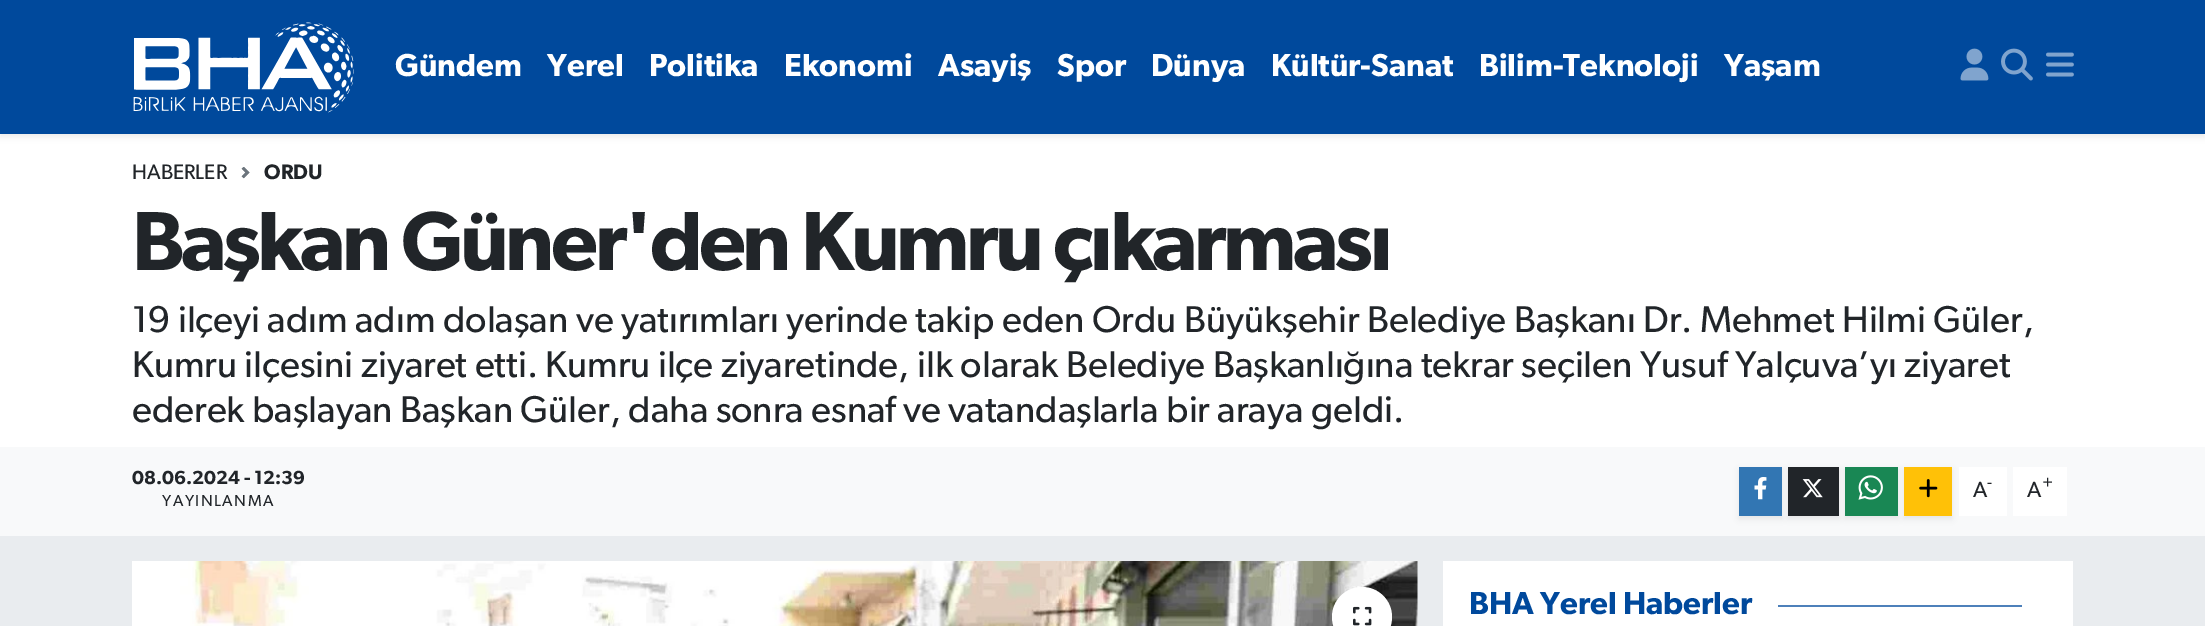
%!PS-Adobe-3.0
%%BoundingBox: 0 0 2205 626
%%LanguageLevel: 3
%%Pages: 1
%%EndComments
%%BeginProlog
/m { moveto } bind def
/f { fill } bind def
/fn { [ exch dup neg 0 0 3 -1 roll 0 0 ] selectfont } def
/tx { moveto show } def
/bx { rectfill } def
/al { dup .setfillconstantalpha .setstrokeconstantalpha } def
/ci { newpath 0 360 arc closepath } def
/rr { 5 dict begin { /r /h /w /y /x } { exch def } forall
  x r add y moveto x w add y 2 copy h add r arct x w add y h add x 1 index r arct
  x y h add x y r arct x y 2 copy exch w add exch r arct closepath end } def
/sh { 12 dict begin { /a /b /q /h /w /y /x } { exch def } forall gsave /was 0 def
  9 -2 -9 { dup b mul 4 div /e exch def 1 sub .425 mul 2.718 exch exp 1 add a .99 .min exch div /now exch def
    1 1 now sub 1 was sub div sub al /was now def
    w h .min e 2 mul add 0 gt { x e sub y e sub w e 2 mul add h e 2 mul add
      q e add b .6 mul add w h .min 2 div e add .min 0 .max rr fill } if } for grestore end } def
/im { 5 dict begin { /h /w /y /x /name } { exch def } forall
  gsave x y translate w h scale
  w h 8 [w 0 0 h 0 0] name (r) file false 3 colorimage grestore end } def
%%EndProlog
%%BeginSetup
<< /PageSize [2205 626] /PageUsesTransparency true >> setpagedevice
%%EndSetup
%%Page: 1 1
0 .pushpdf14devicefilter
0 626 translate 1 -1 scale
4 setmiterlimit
0.914 0.925 0.937 setrgbcolor
0 0 2205 626 bx
1 setgray
0 134 2205 313 bx
0 setgray
0 3 2205 134 0 3 0.07 sh
0 0.286 0.612 setrgbcolor
0 0 2205 134 bx
(image0.raw) 133 22 221 91 im
/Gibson-SemiBold 31.9 fn
1 setgray
(Gündem) 395 76 tx
(Yerel) 547 76 tx
(Politika) 649 76 tx
(Ekonomi) 784 76 tx
(Asayiş) 938 76 tx
(Spor) 1057 76 tx
(Dünya) 1151 76 tx
(Kültür-Sanat) 1271 76 tx
(Bilim-Teknoloji) 1479 76 tx
(Yaşam) 1724 76 tx
(image1.raw) 1960 48 29 33 im
(image2.raw) 2001 48 32 33 im
(image3.raw) 2046 52 28 25 im
/Gibson-Regular 21 fn
0.129 0.145 0.161 setrgbcolor
(HABERLER) 132 179 tx
(image4.raw) 241 167 9 12 im
/Gibson-SemiBold 21 fn
(ORDU) 264 179 tx
/Gibson-SemiBold 84 fn
132 270 m -3.45 0 (Başkan Güner'den Kumru çıkarması) ashow
/Gibson-Regular 37.48 fn
(19 ilçeyi adım adım dolaşan ve yatırımları yerinde takip eden Ordu Büyükşehir Belediye Başkanı Dr. Mehmet Hilmi Güler,) 132 332 tx
(Kumru ilçesini ziyaret etti. Kumru ilçe ziyaretinde, ilk olarak Belediye Başkanlığına tekrar seçilen Yusuf Yalçuva’yı ziyaret) 132 377 tx
(ederek başlayan Başkan Güler, daha sonra esnaf ve vatandaşlarla bir araya geldi.) 132 422 tx
0.973 0.976 0.98 setrgbcolor
0 447 2205 89 bx
/Gibson-SemiBold 19.1 fn
0.129 0.145 0.161 setrgbcolor
(08.06.2024 - 12:39) 132 484 tx
/Gibson-Regular 16 fn
162 506 m 1.5 0 (YAYINLANMA) ashow
0 setgray
1739 470 43 49 0 3 0.07 sh
0.196 0.463 0.702 setrgbcolor
1739 467 43 49 bx
(image5.raw) 1754 477 13 23 im
0 setgray
1788 470 51 49 0 3 0.07 sh
0.129 0.145 0.161 setrgbcolor
1788 467 51 49 bx
(image6.raw) 1802 479 21 19 im
0 setgray
1845 470 53 49 0 3 0.07 sh
0.098 0.529 0.329 setrgbcolor
1845 467 53 49 bx
(image7.raw) 1858 475 25 25 im
1 setgray
1959 467 48 49 bx
0 setgray
1904 470 48 49 0 3 0.07 sh
1 0.757 0.027 setrgbcolor
1904 467 48 49 bx
(image8.raw) 1919 479 19 19 im
/Gibson-Regular 22 fn
0.129 0.145 0.161 setrgbcolor
(A) 1973 497 tx
/Gibson-Regular 17 fn
(-) 1987 488 tx
1 setgray
2013 467 54 49 bx
/Gibson-Regular 22 fn
0.129 0.145 0.161 setrgbcolor
(A) 2027 497 tx
/Gibson-Regular 17 fn
(+) 2042 488 tx
(image9.raw) 132 561 1286 65 im
1 setgray
1362 617 30 ci f
(image10.raw) 1353 606 19 20 im
1443 561 630 65 bx
/Gibson-SemiBold 31.9 fn
0 0.286 0.612 setrgbcolor
(BHA Yerel Haberler) 1469 614 tx
0.302 0.502 0.729 setrgbcolor
1778 605 244 2 bx
.poppdf14devicefilter showpage
%%EOF
